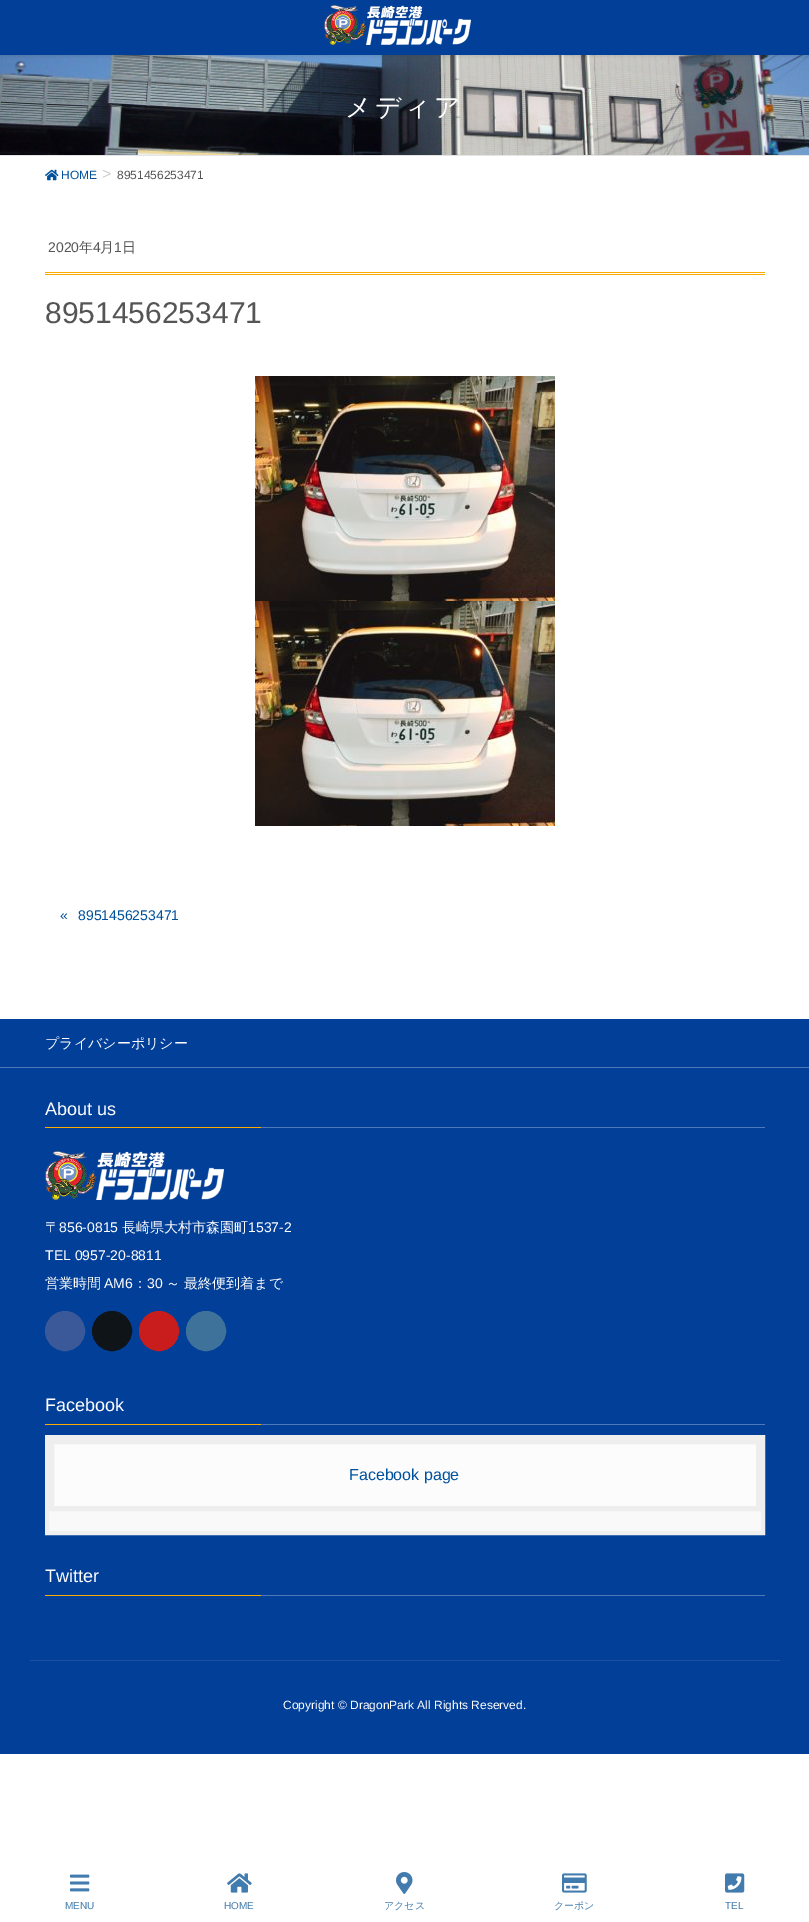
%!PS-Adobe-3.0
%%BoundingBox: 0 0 809 1922
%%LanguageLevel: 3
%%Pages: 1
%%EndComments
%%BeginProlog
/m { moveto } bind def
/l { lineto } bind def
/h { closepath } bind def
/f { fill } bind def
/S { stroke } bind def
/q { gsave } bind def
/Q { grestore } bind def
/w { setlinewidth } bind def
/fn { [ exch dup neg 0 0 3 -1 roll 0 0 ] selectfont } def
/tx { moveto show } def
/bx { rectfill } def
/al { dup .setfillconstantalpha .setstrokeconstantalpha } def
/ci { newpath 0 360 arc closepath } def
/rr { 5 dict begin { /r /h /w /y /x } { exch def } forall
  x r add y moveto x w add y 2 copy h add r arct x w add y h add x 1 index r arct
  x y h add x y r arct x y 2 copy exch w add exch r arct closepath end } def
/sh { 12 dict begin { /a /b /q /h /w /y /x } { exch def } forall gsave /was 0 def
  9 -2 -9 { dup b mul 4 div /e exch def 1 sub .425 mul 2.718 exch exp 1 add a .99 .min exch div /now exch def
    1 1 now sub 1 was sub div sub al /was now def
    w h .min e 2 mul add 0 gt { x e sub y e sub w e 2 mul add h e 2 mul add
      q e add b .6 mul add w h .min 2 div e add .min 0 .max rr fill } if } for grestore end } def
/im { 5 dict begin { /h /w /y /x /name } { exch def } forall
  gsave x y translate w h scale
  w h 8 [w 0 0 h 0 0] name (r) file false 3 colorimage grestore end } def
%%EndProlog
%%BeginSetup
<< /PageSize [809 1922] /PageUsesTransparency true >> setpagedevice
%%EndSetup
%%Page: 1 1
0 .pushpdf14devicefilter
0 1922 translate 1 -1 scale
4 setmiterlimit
1 setgray
0 0 809 1922 bx
(image1.raw) 0 55 809 100 im
0 setgray
0 1 809 55 0 1.5 0.1 sh
0.008 0.247 0.596 setrgbcolor
0 0 809 55 bx
(image0.raw) 324 5 147 40 im
/WenQuanYiZenHei-Medium 26 fn
1 setgray
345 116 m 3 0 (メディア) ashow
0.898 setgray
0 155 809 1 bx
(image2.raw) 45 169 14 12 im
/LiberationSans-Regular 12 fn
0 0.318 0.612 setrgbcolor
(HOME) 61 179 tx
/LiberationSans-Regular 16 fn
0.8 setgray
(>) 102 179 tx
/LiberationSans-Regular 12 fn
0.333 setgray
(8951456253471) 117 179 tx
/LiberationSans-Regular 14 fn
(2020) 48 252 tx
/WenQuanYiZenHei-Medium 14 fn
(年) 79 252 tx
/LiberationSans-Regular 14 fn
(4) 93 252 tx
/WenQuanYiZenHei-Medium 14 fn
(月) 100 252 tx
/LiberationSans-Regular 14 fn
(1) 114 252 tx
/WenQuanYiZenHei-Medium 14 fn
(日) 122 252 tx
0.988 0.675 0 setrgbcolor
45 272 720 1 bx
45 274 720 1 bx
/LiberationSans-Regular 30 fn
0.333 setgray
(8951456253471) 45 323 tx
(image3.raw) 255 376 300 225 im
(image3.raw) 255 601 300 225 im
/LiberationSans-Regular 14 fn
0 0.318 0.612 setrgbcolor
(«) 60 920 tx
(8951456253471) 78 920 tx
0.008 0.247 0.596 setrgbcolor
0 1019 809 735 bx
0.306 0.475 0.718 setrgbcolor
0 1067 809 1 bx
/WenQuanYiZenHei-Medium 14 fn
1 setgray
(プライバシーポリシー) 45 1048 tx
0.306 0.475 0.718 setrgbcolor
261 1127 504 1 bx
/LiberationSans-Regular 18 fn
1 setgray
(About us) 45 1115 tx
0.988 0.675 0 setrgbcolor
45 1127 216 1 bx
(image4.raw) 45 1151 179 49 im
/WenQuanYiZenHei-Medium 14 fn
1 setgray
(〒) 45 1232 tx
/LiberationSans-Regular 14 fn
(856-0815) 59 1232 tx
/WenQuanYiZenHei-Medium 14 fn
(長崎県大村市森園町) 122 1232 tx
/LiberationSans-Regular 14 fn
(1537-2) 248 1232 tx
(TEL 0957-20-8811) 45 1260 tx
/WenQuanYiZenHei-Medium 14 fn
(営業時間) 45 1288 tx
/LiberationSans-Regular 14 fn
(AM6) 104 1288 tx
/WenQuanYiZenHei-Medium 14 fn
(：) 133 1288 tx
/LiberationSans-Regular 14 fn
(30) 147 1288 tx
/WenQuanYiZenHei-Medium 14 fn
(～ 最終便到着まで) 166 1288 tx
0.231 0.349 0.596 setrgbcolor
65 1331 19.5 ci q f Q
S
0.059 0.078 0.098 setrgbcolor
112 1331 19.5 ci q f Q
S
0.784 0.114 0.11 setrgbcolor
159 1331 19.5 ci q f Q
S
0.247 0.447 0.608 setrgbcolor
206 1331 19.5 ci q f Q
S
0.306 0.475 0.718 setrgbcolor
261 1424 504 1 bx
/LiberationSans-Regular 18 fn
1 setgray
(Facebook) 45 1411 tx
0.988 0.675 0 setrgbcolor
45 1424 216 1 bx
0.976 setgray
49 1511 712 20 bx
0.937 setgray
4 w
47 1437 716 96 rectstroke
0.988 setgray
51.5 1441.5 m 758.5 1441.5 l 758.5 1508.5 l 51.5 1508.5 l h q f Q
0.933 setgray
5 w
S
/LiberationSans-Regular 16 fn
0 0.318 0.612 setrgbcolor
(Facebook page) 349 1480 tx
0.306 0.475 0.718 setrgbcolor
261 1595 504 1 bx
/LiberationSans-Regular 18 fn
1 setgray
(Twitter) 45 1582 tx
0.988 0.675 0 setrgbcolor
45 1595 216 1 bx
0.106 0.322 0.635 setrgbcolor
30 1660 750 1 bx
/LiberationSans-Regular 12 fn
1 setgray
(Copyright © DragonPark All Rights Reserved.) 283 1709 tx
(image5.raw) 70 1874 20 18 im
/LiberationSans-Regular 10 fn
0.263 0.486 0.678 setrgbcolor
(MENU) 65 1909 tx
(image6.raw) 227 1873 25 20 im
(HOME) 224 1909 tx
(image7.raw) 396 1872 17 22 im
/WenQuanYiZenHei-Medium 10 fn
(アクセス) 384 1909 tx
(image8.raw) 562 1873 25 20 im
(クーポン) 554 1909 tx
(image9.raw) 725 1873 20 20 im
/LiberationSans-Regular 10 fn
(TEL) 725 1909 tx
.poppdf14devicefilter showpage
%%EOF
